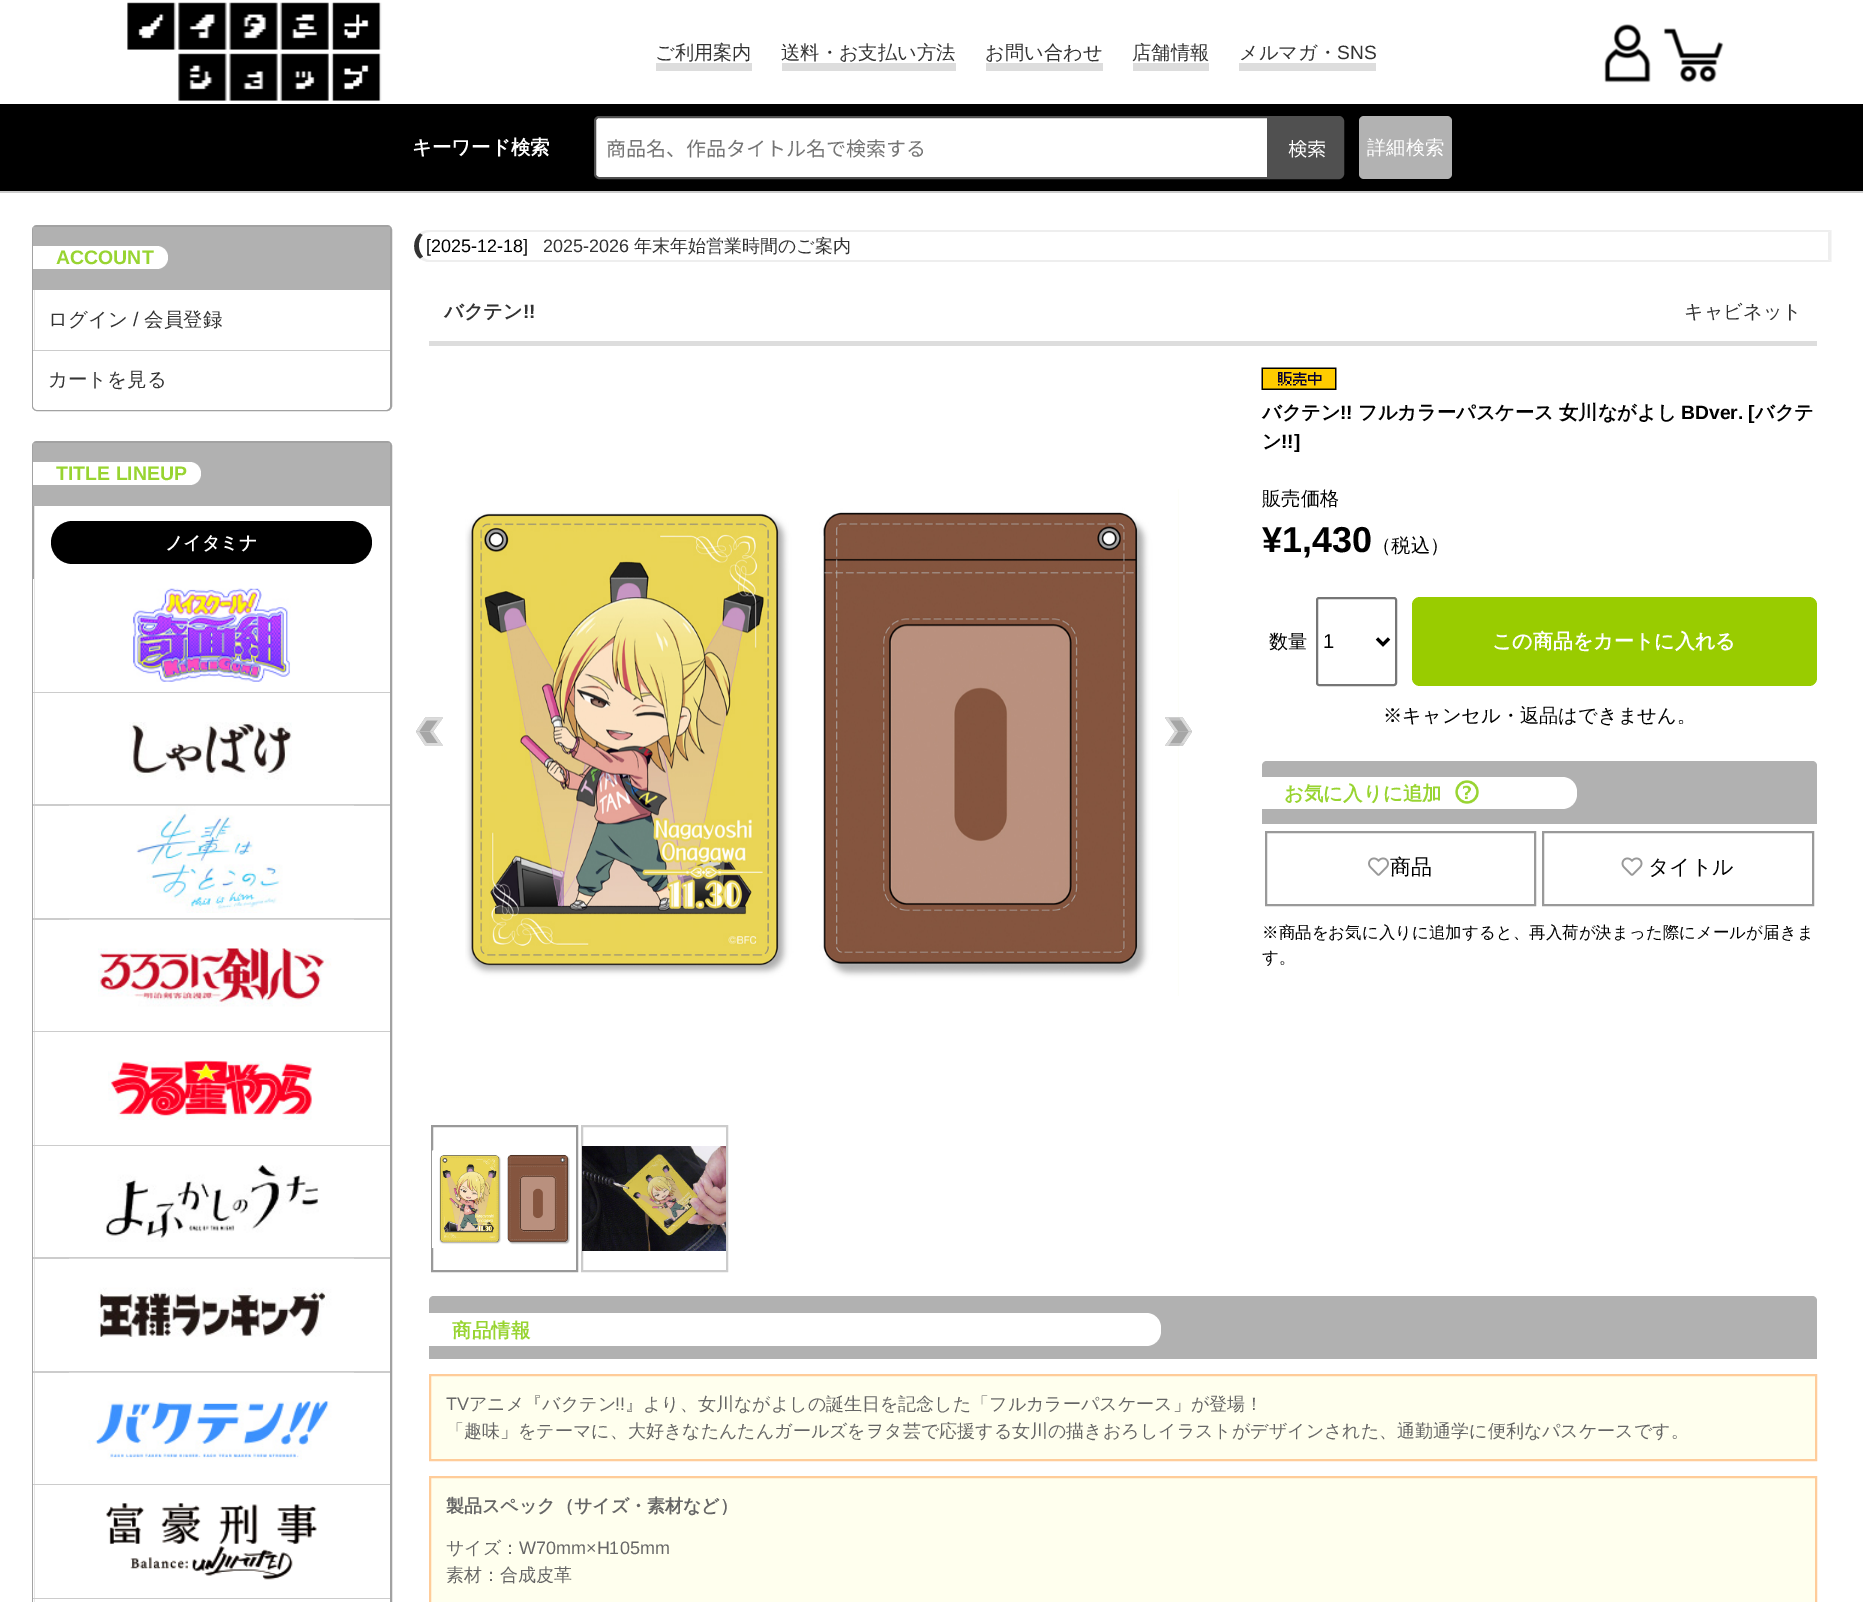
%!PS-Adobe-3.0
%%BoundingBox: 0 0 1863 1602
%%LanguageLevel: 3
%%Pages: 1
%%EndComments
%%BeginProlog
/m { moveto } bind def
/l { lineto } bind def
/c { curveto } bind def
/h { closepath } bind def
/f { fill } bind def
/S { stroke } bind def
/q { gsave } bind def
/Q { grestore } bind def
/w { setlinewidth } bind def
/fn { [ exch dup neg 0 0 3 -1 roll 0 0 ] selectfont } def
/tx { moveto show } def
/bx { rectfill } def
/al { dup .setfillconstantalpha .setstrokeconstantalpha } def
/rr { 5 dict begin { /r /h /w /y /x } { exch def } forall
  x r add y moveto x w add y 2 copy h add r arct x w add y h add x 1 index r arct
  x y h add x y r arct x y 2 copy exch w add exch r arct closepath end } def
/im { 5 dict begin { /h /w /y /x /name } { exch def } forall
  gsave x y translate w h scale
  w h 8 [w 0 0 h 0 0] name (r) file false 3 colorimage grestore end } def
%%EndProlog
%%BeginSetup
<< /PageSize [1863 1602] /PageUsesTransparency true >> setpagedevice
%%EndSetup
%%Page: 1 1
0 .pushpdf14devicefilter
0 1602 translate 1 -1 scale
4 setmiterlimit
1 setgray
0 0 1863 1602 bx
0.8 setgray
0 191 1863 2 bx
(image0.raw) 127 2 255 99 im
/WenQuanYiZenHei-Medium 19.25 fn
0.2 setgray
(ご利用案内) 655 59 tx
0.867 setgray
656 63 96 8 bx
0.2 setgray
(送料・お支払い方法) 781 59 tx
0.867 setgray
782 63 174 8 bx
0.2 setgray
(お問い合わせ) 985 59 tx
0.867 setgray
986 63 117 8 bx
0.2 setgray
(店舗情報) 1132 59 tx
0.867 setgray
1133 63 76 8 bx
0.2 setgray
(メルマガ・) 1239 59 tx
0.867 setgray
1239 63 137 8 bx
/LiberationSans-Regular 19.25 fn
0.2 setgray
(SNS) 1337 59 tx
(image1.raw) 1604 24 47 59 im
(image2.raw) 1663 28 61 55 im
0 setgray
0 104 1863 87 bx
/WenQuanYiZenHei-Bold 19.5 fn
1 setgray
(キーワード検索) 412 154 tx
599 117 m 1268 117 l 1268 178 l 599 178 l 597 178 595 176 595 174 c 595 121 l 595 119 597 117 599 117 c h q f Q
0.314 setgray
2 w
S
/NotoSansJP-Regular 20 fn
0.459 setgray
(商品名、作品タイトル名で検索する) 606 156 tx
0.314 setgray
1270 117 m 1339 117 l 1341 117 1343 119 1343 121 c 1343 174 l 1343 176 1341 178 1339 178 c 1270 178 l h q f Q
S
/NotoSansJP-Regular 19.25 fn
1 setgray
(検索) 1288 156 tx
0.698 setgray
1359 116 93 63 5 rr f
/WenQuanYiZenHei-Medium 19.25 fn
1 setgray
(詳細検索) 1367 154 tx
0.635 setgray
33 226 358 184 4 rr S
0.694 setgray
33 227 357 63 bx
1 setgray
33 246 m 156.5 246 l 163 246 168 251 168 257.5 c 168 264 163 269 156.5 269 c 33 269 l h f
/LiberationSans-Bold 19.5 fn
0.596 0.831 0.192 setrgbcolor
(ACCOUNT) 56 264 tx
1 setgray
33 290 1 60 bx
0.8 setgray
33 350 357 1 bx
/WenQuanYiZenHei-Medium 19.5 fn
0.2 setgray
(ログイン) 48 326 tx
/LiberationSans-Regular 19.5 fn
(/) 133 326 tx
/WenQuanYiZenHei-Medium 19.5 fn
(会員登録) 144 326 tx
1 setgray
33 351 m 390 351 l 390 405 l 390 408 388 410 385 410 c 38 410 l 35 410 33 408 33 405 c h f
0.2 setgray
(カートを見る) 48 386 tx
0.635 setgray
33 442 358 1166 4 rr S
0.694 setgray
33 443 357 63 bx
1 setgray
33 462 m 189.5 462 l 196 462 201 467 201 473.5 c 201 480 196 485 189.5 485 c 33 485 l h f
/LiberationSans-Bold 19.5 fn
0.596 0.831 0.192 setrgbcolor
(TITLE LINEUP) 56 480 tx
0 setgray
51 521 321 43 21.5 rr f
/WenQuanYiZenHei-Bold 18 fn
1 setgray
(ノイタミナ) 165 549 tx
33 579 1 113 bx
0.8 setgray
33 692 357 1 bx
(image3.raw) 133 588 158 94 im
1 setgray
33 693 1 111 bx
0.8 setgray
33 804 357 2 bx
(image4.raw) 129 722 163 58 im
1 setgray
33 806 1 112 bx
0.8 setgray
33 918 357 2 bx
(image5.raw) 69 805 285 108 im
1 setgray
33 920 1 111 bx
0.8 setgray
33 1031 357 1 bx
(image6.raw) 69 919 285 88 im
1 setgray
33 1032 1 113 bx
0.8 setgray
33 1145 357 1 bx
(image7.raw) 108 1060 204 60 im
1 setgray
33 1146 1 111 bx
0.8 setgray
33 1257 357 2 bx
(image8.raw) 104 1165 215 77 im
1 setgray
33 1259 1 112 bx
0.8 setgray
33 1371 357 2 bx
(image9.raw) 69 1258 285 79 im
1 setgray
33 1373 1 111 bx
0.8 setgray
33 1484 357 1 bx
(image10.raw) 69 1372 285 88 im
1 setgray
33 1485 1 113 bx
0.8 setgray
33 1598 357 1 bx
(image11.raw) 106 1503 211 77 im
1 setgray
33 1599 1 3 bx
0.933 setgray
430 230 m 426 230 422 231 420 233 c 422 235 l 424 233 427 232 430 232 c 1828 232 l 1828 233 l 1831 230 l h f
1831.5 262 m 1831 262 l 1828 259 l 1828 233 l 1831 230 l 1831.5 230 l h f
1831 262 m 427 262 l 424 261 422 260 420 259 c 423 257 l 425 259 427 260 430 260 c 1828 260 l 1828 259 l h f
0.2 setgray
420 233.5 m 412.5 239.5 412 252.5 420 258.5 c 423 256.5 l 417.5 251 417.5 240.5 422.5 235 c h f
/LiberationSans-Regular 18 fn
0 setgray
([2025-12-18]) 426 252 tx
0.2 setgray
(2025-2026) 543 252 tx
/WenQuanYiZenHei-Medium 18 fn
(年末年始営業時間のご案内) 634 252 tx
0.867 setgray
429 341 1388 5 bx
/WenQuanYiZenHei-Bold 19.25 fn
0.2 setgray
(バクテン) 444 318 tx
/LiberationSans-Bold 19.25 fn
(!!) 523 318 tx
/WenQuanYiZenHei-Medium 19.25 fn
(キャビネット) 1684 318 tx
(image12.raw) 465 489 714 507 im
0.651 setgray
425.5 717.5 m 443 717.5 l 433 731.5 l 416 731.5 l h f
0.859 setgray
425.5 717.5 m 443 717.5 l 441 720.5 l 423.5 720.5 l h f
440 717.5 m 443 717.5 l 433 731.5 l 430 731.5 l h 425.5 717.5 m 428.5 717.5 l 419 731.5 l 416 731.5 l h f
0.651 setgray
416 731.5 m 433 731.5 l 443 746 l 425.5 746 l h f
0.859 setgray
430 731.5 m 433 731.5 l 443 746 l 440 746 l h f
423.5 743 m 441 743 l 443 746 l 425.5 746 l h f
416 731.5 m 419 731.5 l 428.5 746 l 425.5 746 l h f
0.7 al
0.502 setgray
1165 717.5 m 1182.5 717.5 l 1192 731.5 l 1175 731.5 l h f
0.8 setgray
1165 717.5 m 1182.5 717.5 l 1184.5 720.5 l 1167 720.5 l h f
1 al
0.859 setgray
1179.5 717.5 m 1182.5 717.5 l 1192 731.5 l 1189 731.5 l h 1165 717.5 m 1168 717.5 l 1178 731.5 l 1175 731.5 l h f
0.7 al
0.502 setgray
1175 731.5 m 1192 731.5 l 1182.5 746 l 1165 746 l h f
1 al
0.859 setgray
1189 731.5 m 1192 731.5 l 1182.5 746 l 1179.5 746 l h f
0.7 al
0.8 setgray
1167 743 m 1184.5 743 l 1182.5 746 l 1165 746 l h f
1 al
0.859 setgray
1175 731.5 m 1178 731.5 l 1168 746 l 1165 746 l h f
0.6 setgray
432 1126 145 145 rectstroke
(image13.raw) 432 1150 138 98 im
0.8 setgray
582 1126 145 145 rectstroke
(image14.raw) 582 1146 144 105 im
(image15.raw) 1261 367 76 23 im
/WenQuanYiZenHei-Bold 19.25 fn
0 setgray
(バクテン) 1262 419 tx
/LiberationSans-Bold 19.25 fn
(!!) 1340 419 tx
/WenQuanYiZenHei-Bold 19.25 fn
(フルカラーパスケース) 1358 419 tx
(女川ながよし) 1559 419 tx
/LiberationSans-Bold 19.25 fn
(BDver. [) 1681 419 tx
/WenQuanYiZenHei-Bold 19.25 fn
(バクテ) 1755 419 tx
(ン) 1262 448 tx
/LiberationSans-Bold 19.25 fn
(!!]) 1281 448 tx
/WenQuanYiZenHei-Medium 19.25 fn
(販売価格) 1262 505 tx
/LiberationSans-Bold 36 fn
(¥1,430) 1262 552 tx
/WenQuanYiZenHei-Medium 19.25 fn
(（税込）) 1372 552 tx
(数量) 1269 648 tx
0.463 setgray
1317 598 79 87 2 rr S
0 setgray
3 w
1377 638.5 m 1383 644.5 l 1389 638.5 l S
/LiberationSans-Regular 20 fn
(1) 1323 648 tx
0.6 0.8 0 setrgbcolor
1412 597 405 89 8 rr f
/WenQuanYiZenHei-Bold 20 fn
1 setgray
(この商品をカートに入れる) 1492 648 tx
/WenQuanYiZenHei-Medium 19.25 fn
0 setgray
(※キャンセル・返品はできません。) 1383 722 tx
0.694 setgray
1267 761 m 1812 761 l 1815 761 1817 763 1817 766 c 1817 824 l 1262 824 l 1262 766 l 1262 763 1264 761 1267 761 c h f
1 setgray
1262 777 m 1562 777 l 1570.5 777 1577 783.5 1577 792 c 1577 794 l 1577 802.5 1570.5 809 1562 809 c 1262 809 l h f
/WenQuanYiZenHei-Bold 19.5 fn
0.596 0.831 0.192 setrgbcolor
(お気に入りに追加) 1284 800 tx
(image16.raw) 1455 780 24 24 im
0.6 setgray
2 w
1266 832 269 73 rectstroke
(image17.raw) 1368 857 21 19 im
/WenQuanYiZenHei-Medium 21 fn
0 setgray
(商品) 1390 874 tx
0.6 setgray
1543 832 270 73 rectstroke
(image18.raw) 1621 857 22 19 im
0 setgray
(タイトル) 1648 874 tx
/WenQuanYiZenHei-Medium 16.5 fn
(※商品をお気に入りに追加すると、再入荷が決まった際にメールが届きま) 1262 938 tx
(す。) 1262 963 tx
0.694 setgray
434 1296 m 1812 1296 l 1815 1296 1817 1298 1817 1301 c 1817 1359 l 429 1359 l 429 1301 l 429 1298 431 1296 434 1296 c h f
1 setgray
429 1313 m 1146 1313 l 1154.5 1313 1161 1319.5 1161 1328 c 1161 1331 l 1161 1339.5 1154.5 1346 1146 1346 c 429 1346 l h f
/WenQuanYiZenHei-Bold 19.5 fn
0.596 0.831 0.192 setrgbcolor
(商品情報) 452 1337 tx
1 1 0.933 setrgbcolor
430 1375 m 1816 1375 l 1816 1460 l 430 1460 l h q f Q
1 0.8 0.6 setrgbcolor
S
/LiberationSans-Regular 18 fn
0.4 setgray
(TV) 446 1410 tx
/WenQuanYiZenHei-Medium 18 fn
(アニメ『バクテン) 469 1410 tx
/LiberationSans-Regular 18 fn
(!!) 615 1410 tx
/WenQuanYiZenHei-Medium 18 fn
(』より、女川ながよしの誕生日を記念した「フルカラーパスケース」が登場！) 625 1410 tx
(「趣味」をテーマに、大好きなたんたんガールズをヲタ芸で応援する女川の描きおろしイラストがデザインされた、通勤通学に便利なパスケースです。) 446 1437 tx
1 1 0.933 setrgbcolor
430 1477 m 1816 1477 l 1816 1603 l 430 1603 l h q f Q
1 0.8 0.6 setrgbcolor
S
/WenQuanYiZenHei-Bold 18 fn
0.4 setgray
(製品スペック（サイズ・素材など）) 446 1512 tx
/WenQuanYiZenHei-Medium 18 fn
(サイズ：) 446 1554 tx
/LiberationSans-Regular 18 fn
(W70mm×H105mm) 519 1554 tx
/WenQuanYiZenHei-Medium 18 fn
(素材：合成皮革) 446 1581 tx
.poppdf14devicefilter showpage
%%EOF
